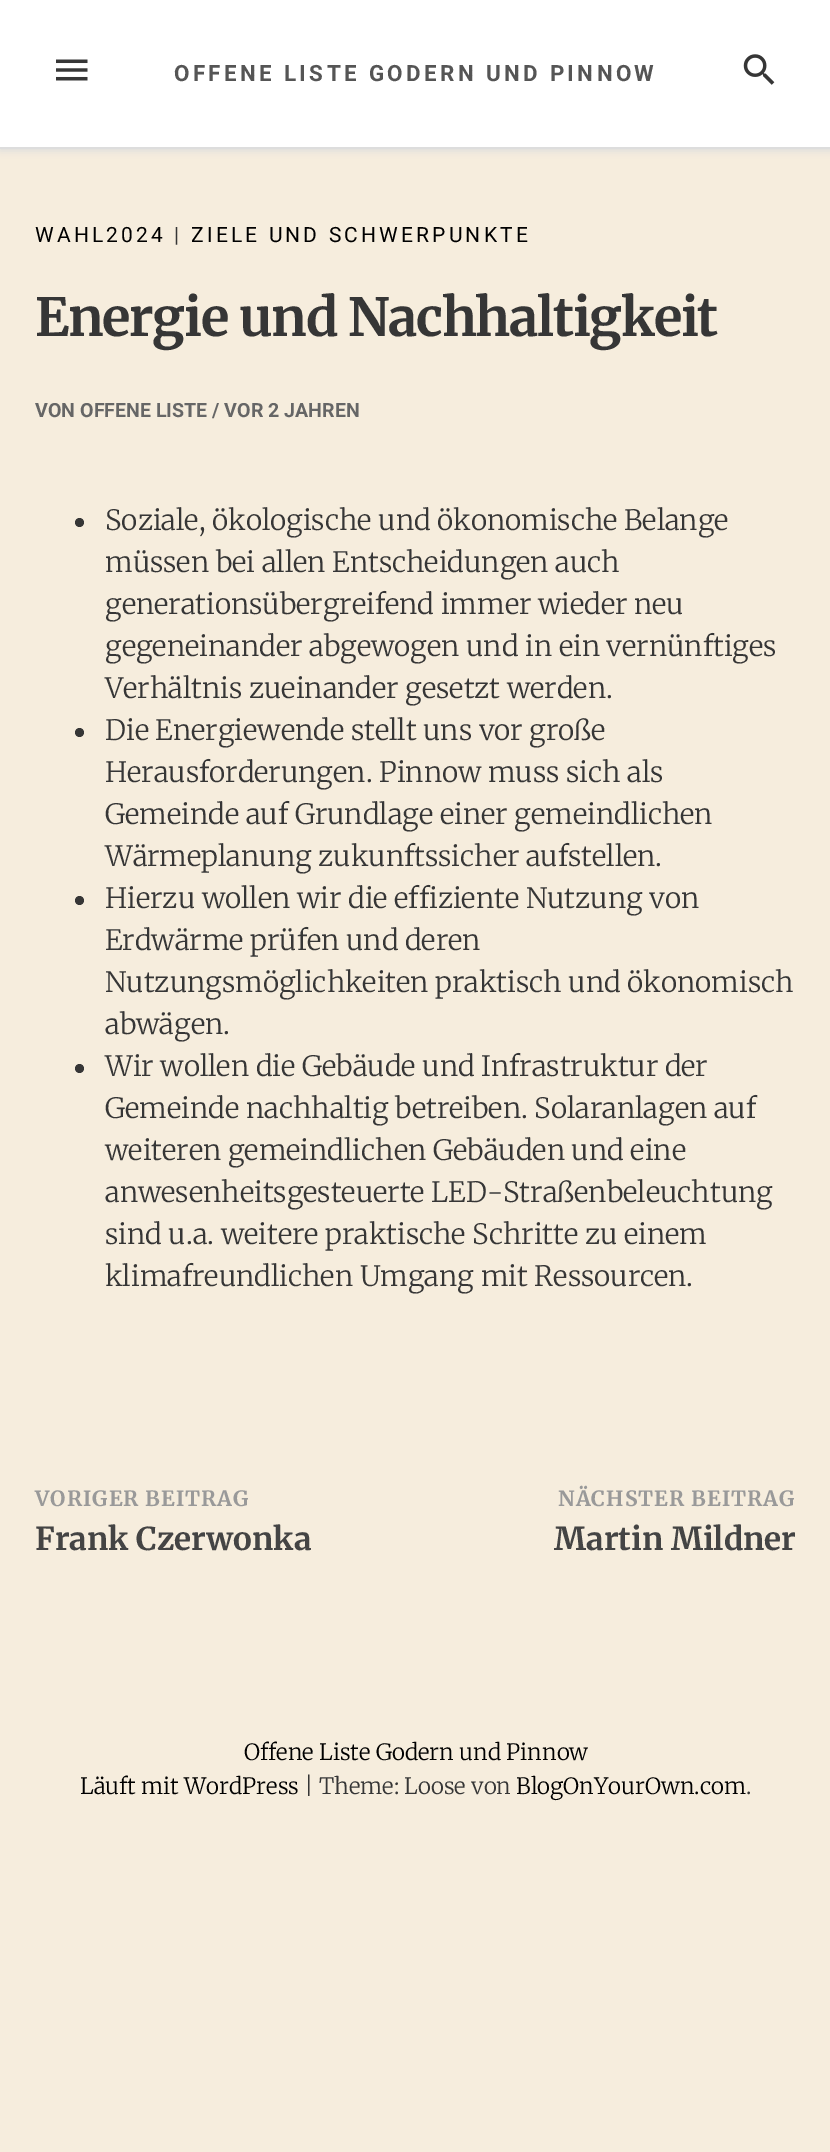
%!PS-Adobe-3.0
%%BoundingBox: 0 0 830 2152
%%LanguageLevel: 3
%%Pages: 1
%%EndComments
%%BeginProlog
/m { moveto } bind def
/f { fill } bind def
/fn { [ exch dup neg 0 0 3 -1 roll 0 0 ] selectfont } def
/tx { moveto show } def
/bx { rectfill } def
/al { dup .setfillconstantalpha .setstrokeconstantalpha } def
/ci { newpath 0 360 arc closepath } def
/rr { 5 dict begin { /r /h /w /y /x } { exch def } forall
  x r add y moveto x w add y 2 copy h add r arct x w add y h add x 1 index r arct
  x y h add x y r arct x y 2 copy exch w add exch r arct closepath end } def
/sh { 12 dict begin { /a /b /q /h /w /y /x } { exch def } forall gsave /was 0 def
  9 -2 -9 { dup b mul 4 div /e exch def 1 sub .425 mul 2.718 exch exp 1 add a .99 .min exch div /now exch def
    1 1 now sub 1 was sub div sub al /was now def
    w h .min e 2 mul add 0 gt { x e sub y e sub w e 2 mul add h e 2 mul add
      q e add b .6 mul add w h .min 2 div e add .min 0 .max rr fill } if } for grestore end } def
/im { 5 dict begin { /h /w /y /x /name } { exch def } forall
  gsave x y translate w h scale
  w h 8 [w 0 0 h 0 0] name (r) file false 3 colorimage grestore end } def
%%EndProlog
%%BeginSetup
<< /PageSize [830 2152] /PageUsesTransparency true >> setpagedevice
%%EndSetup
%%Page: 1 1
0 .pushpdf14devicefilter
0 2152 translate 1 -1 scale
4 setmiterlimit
0.965 0.929 0.867 setrgbcolor
0 0 830 2152 bx
0.867 setgray
0 2 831 149 0 3.5 1 sh
1 setgray
0 0 830 147 bx
0.867 setgray
0 147 830 2 bx
(image0.raw) 56 59 32 22 im
/Roboto-Bold 22.4 fn
0.333 setgray
174 81 m 3.35 0 (OFFENE LISTE GODERN UND PINNOW) ashow
(image1.raw) 743 54 32 31 im
/Roboto-Regular 21 fn
0 setgray
35 242 m 3.15 0 (WAHL2024) ashow
0.212 setgray
174 242 m 3.15 0 (|) ashow
0 setgray
191 242 m 3.15 0 (ZIELE UND SCHWERPUNKTE) ashow
/Merriweather-Bold 52.5 fn
0.212 setgray
35 336 m -1.3 0 (Energie und Nachhaltigkeit) ashow
/Roboto-Bold 19.6 fn
0.4 setgray
(VON OFFENE LISTE / VOR 2 JAHREN) 35 417 tx
0.212 setgray
79.5 522.5 4.5 ci f
/Merriweather-Light 28 fn
(Soziale, ökologische und ökonomische Belange) 105 530 tx
(müssen bei allen Entscheidungen auch) 105 572 tx
(generationsübergreifend immer wieder neu) 105 614 tx
(gegeneinander abgewogen und in ein vernünftiges) 105 656 tx
(Verhältnis zueinander gesetzt werden.) 105 698 tx
79.5 732.5 4.5 ci f
(Die Energiewende stellt uns vor große) 105 740 tx
(Herausforderungen. Pinnow muss sich als) 105 782 tx
(Gemeinde auf Grundlage einer gemeindlichen) 105 824 tx
(Wärmeplanung zukunftssicher aufstellen.) 105 866 tx
79.5 900.5 4.5 ci f
(Hierzu wollen wir die effiziente Nutzung von) 105 908 tx
(Erdwärme prüfen und deren) 105 950 tx
(Nutzungsmöglichkeiten praktisch und ökonomisch) 105 992 tx
(abwägen.) 105 1034 tx
79.5 1068.5 4.5 ci f
(Wir wollen die Gebäude und Infrastruktur der) 105 1076 tx
(Gemeinde nachhaltig betreiben. Solaranlagen auf) 105 1118 tx
(weiteren gemeindlichen Gebäuden und eine) 105 1160 tx
(anwesenheitsgesteuerte LED-Straßenbeleuchtung) 105 1202 tx
(sind u.a. weitere praktische Schritte zu einem) 105 1244 tx
(klimafreundlichen Umgang mit Ressourcen.) 105 1286 tx
/Merriweather-Bold 21 fn
0.6 setgray
35 1506 m 1 0 (VORIGER BEITRAG) ashow
/Merriweather-Bold 31.5 fn
0.267 setgray
(Frank Czerwonka) 35 1550 tx
/Merriweather-Bold 21 fn
0.6 setgray
558 1506 m 1 0 (NÄCHSTER BEITRAG) ashow
/Merriweather-Bold 31.5 fn
0.267 setgray
(Martin Mildner) 554 1550 tx
/Merriweather-Light 22.4 fn
0 setgray
(Offene Liste Godern und Pinnow) 244 1760 tx
(Läuft mit WordPress) 80 1794 tx
0.212 setgray
(| Theme: Loose von) 304 1794 tx
0 setgray
(BlogOnYourOwn.com) 516 1794 tx
0.212 setgray
(.) 746 1794 tx
.poppdf14devicefilter showpage
%%EOF
